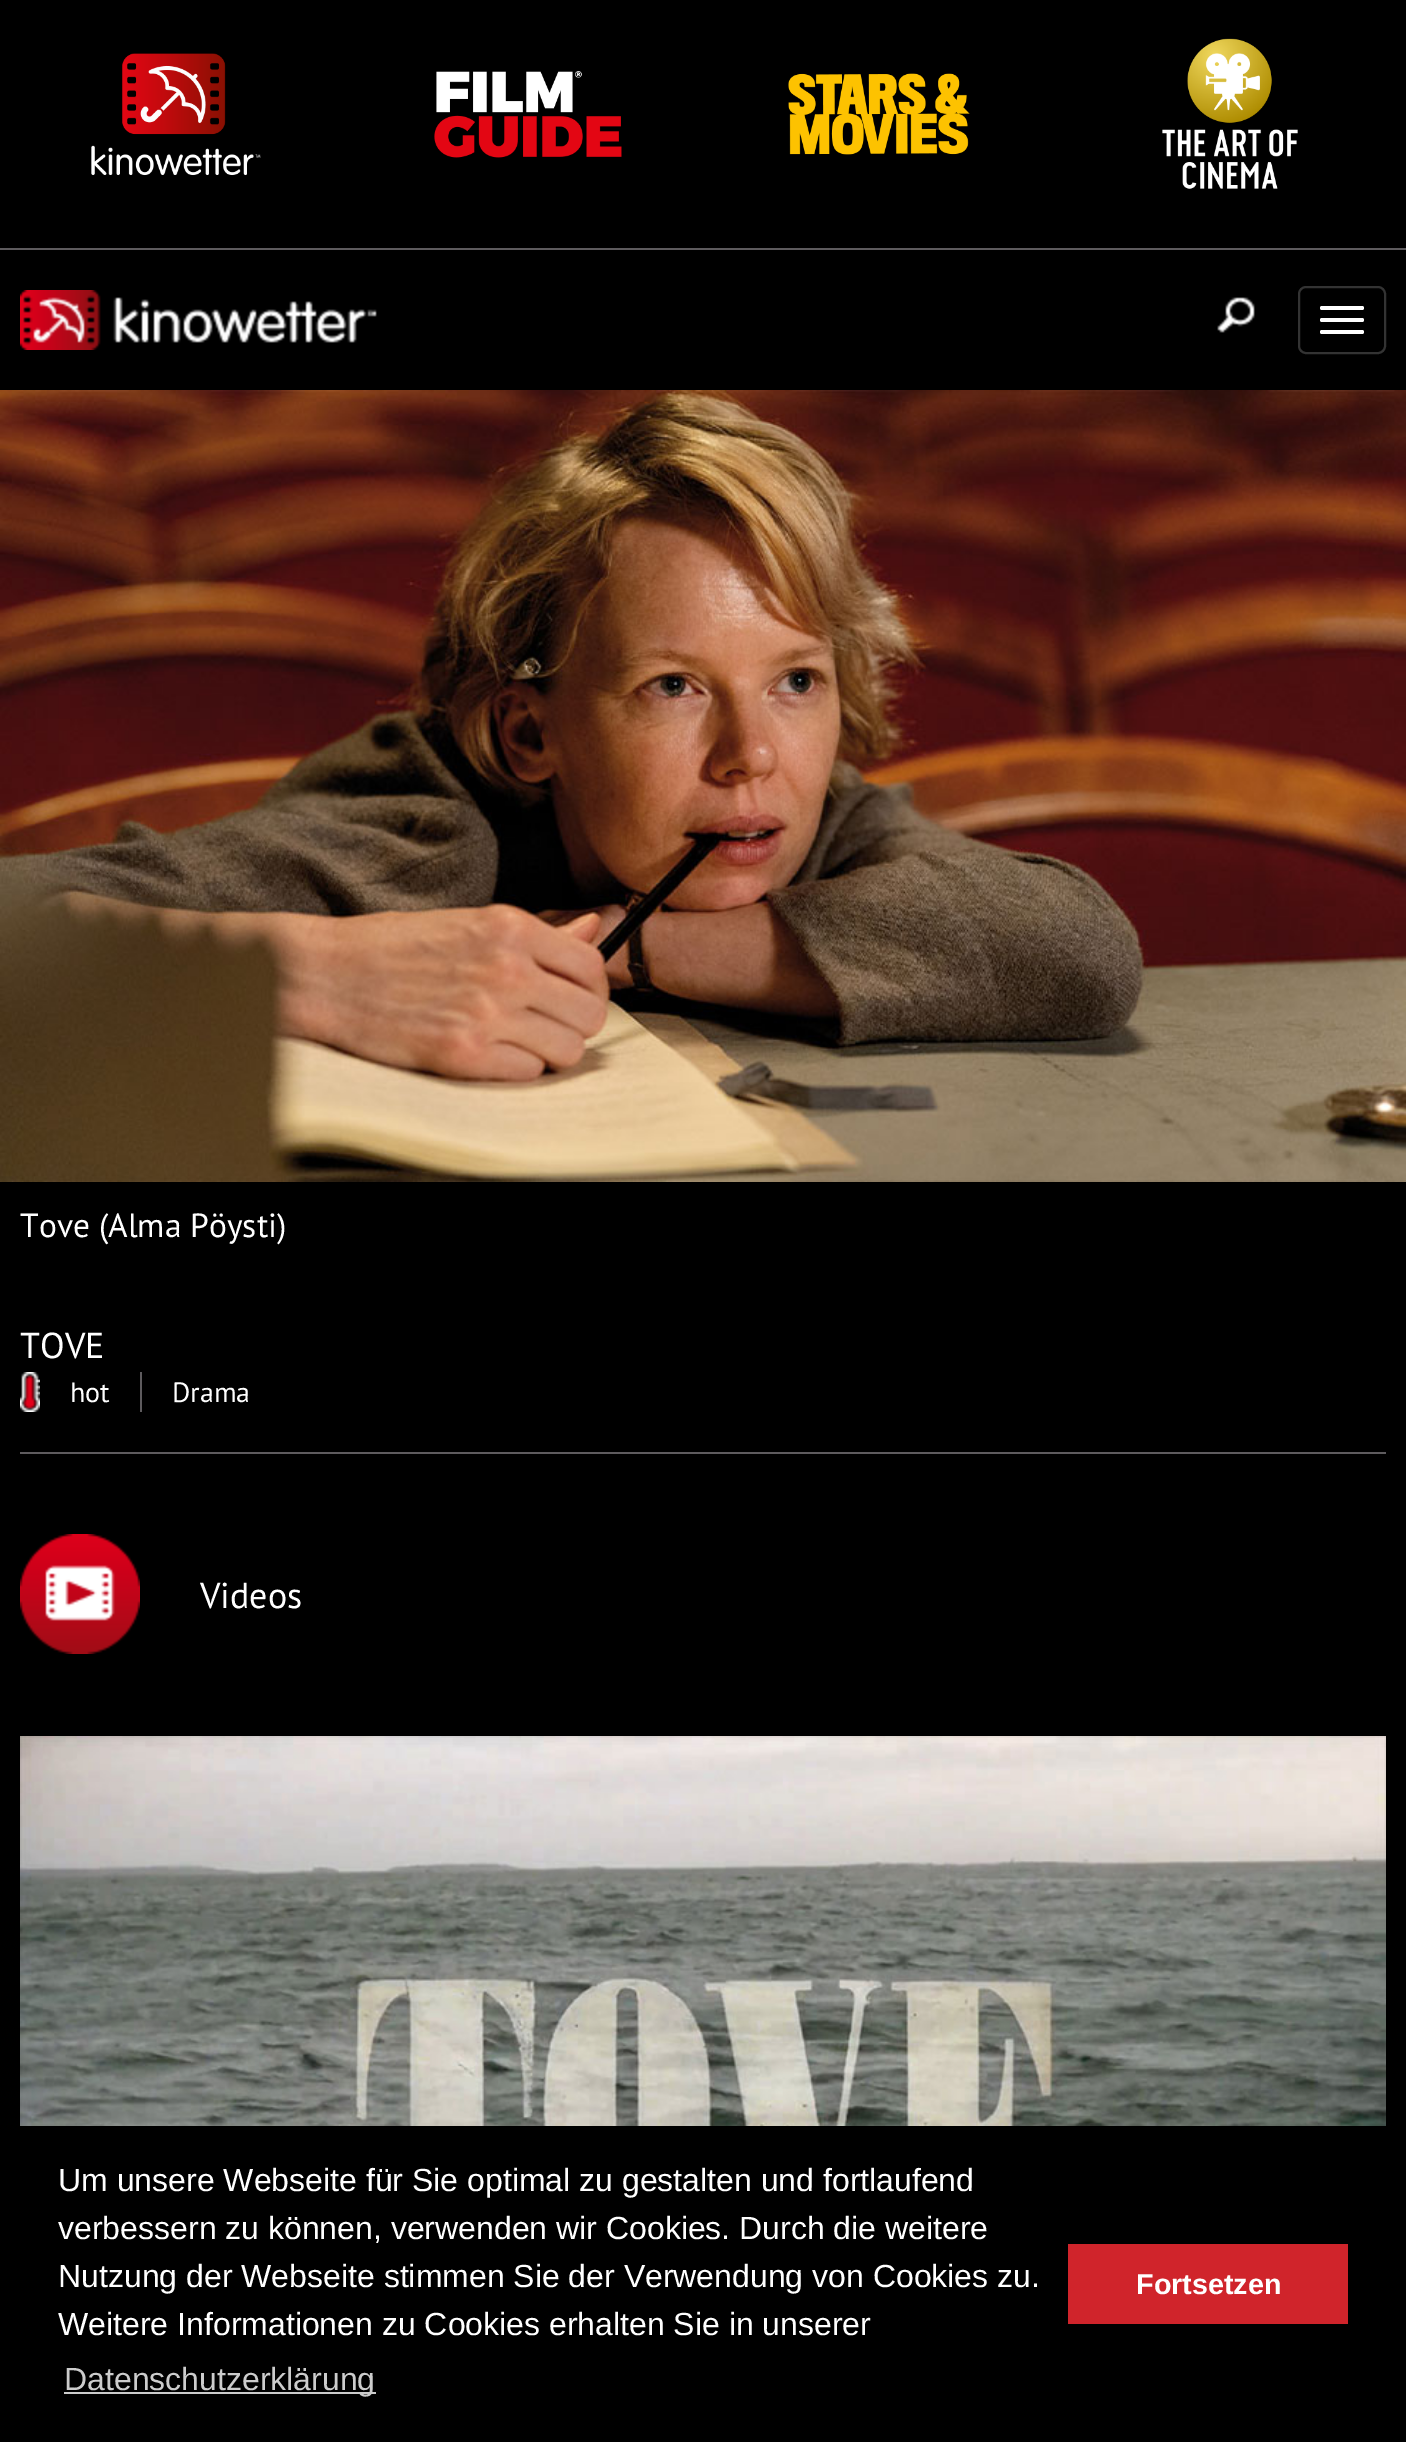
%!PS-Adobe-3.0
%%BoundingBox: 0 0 1406 2442
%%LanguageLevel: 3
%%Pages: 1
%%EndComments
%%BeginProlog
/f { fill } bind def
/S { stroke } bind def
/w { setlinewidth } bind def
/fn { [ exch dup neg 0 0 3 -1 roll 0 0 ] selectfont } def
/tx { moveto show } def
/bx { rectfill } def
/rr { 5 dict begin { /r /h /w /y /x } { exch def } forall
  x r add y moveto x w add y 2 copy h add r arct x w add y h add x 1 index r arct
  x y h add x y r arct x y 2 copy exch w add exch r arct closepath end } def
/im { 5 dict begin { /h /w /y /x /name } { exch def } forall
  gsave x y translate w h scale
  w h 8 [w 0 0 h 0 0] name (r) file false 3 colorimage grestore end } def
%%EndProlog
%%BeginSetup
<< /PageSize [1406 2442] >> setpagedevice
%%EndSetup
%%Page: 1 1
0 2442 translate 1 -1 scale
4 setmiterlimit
0 setgray
0 0 1406 2442 bx
(image0.raw) 91 53 170 123 im
(image1.raw) 434 71 188 87 im
(image2.raw) 788 73 182 82 im
(image3.raw) 1162 38 136 151 im
0.369 0.357 0.369 setrgbcolor
0 248 1406 2 bx
(image4.raw) 20 290 357 60 im
0.2 setgray
2 w
1299 287 86 66 7 rr S
1 setgray
1320 306 44 4 2 rr f
1320 318 44 4 2 rr f
1320 330 44 4 2 rr f
(image5.raw) 1217 297 38 36 im
(image6.raw) 0 390 1406 792 im
/PTSans-Regular 33.5 fn
(Tove \(Alma Pöysti\)) 20 1237 tx
0.369 0.357 0.369 setrgbcolor
20 1452 1366 2 bx
/PTSans-Regular 36 fn
1 setgray
(TOVE) 20 1358 tx
(image7.raw) 20 1372 20 40 im
0.369 0.357 0.369 setrgbcolor
140 1372 2 40 bx
/PTSans-Regular 28 fn
1 setgray
(hot) 70 1402 tx
(Drama) 172 1402 tx
(image8.raw) 20 1534 120 120 im
/PTSans-Regular 36 fn
(Videos) 200 1608 tx
(image9.raw) 20 1736 1366 390 im
/LiberationSans-Regular 32 fn
(Um unsere Webseite für Sie optimal zu gestalten und fortlaufend) 58 2191 tx
(verbessern zu können, verwenden wir Cookies. Durch die weitere) 58 2239 tx
(Nutzung der Webseite stimmen Sie der Verwendung von Cookies zu.) 58 2287 tx
(Weitere Informationen zu Cookies erhalten Sie in unserer) 58 2335 tx
0.8 setgray
64 2392 312 2 bx
(Datenschutzerklärung) 64 2390 tx
0.816 0.141 0.169 setrgbcolor
1068 2244 280 80 bx
/LiberationSans-Bold 28.75 fn
1 setgray
(Fortsetzen) 1136 2294 tx
showpage
%%EOF
